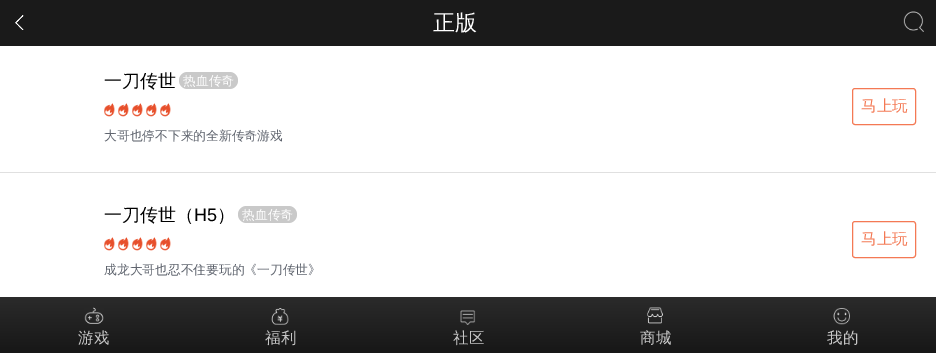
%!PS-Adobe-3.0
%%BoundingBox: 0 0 936 353
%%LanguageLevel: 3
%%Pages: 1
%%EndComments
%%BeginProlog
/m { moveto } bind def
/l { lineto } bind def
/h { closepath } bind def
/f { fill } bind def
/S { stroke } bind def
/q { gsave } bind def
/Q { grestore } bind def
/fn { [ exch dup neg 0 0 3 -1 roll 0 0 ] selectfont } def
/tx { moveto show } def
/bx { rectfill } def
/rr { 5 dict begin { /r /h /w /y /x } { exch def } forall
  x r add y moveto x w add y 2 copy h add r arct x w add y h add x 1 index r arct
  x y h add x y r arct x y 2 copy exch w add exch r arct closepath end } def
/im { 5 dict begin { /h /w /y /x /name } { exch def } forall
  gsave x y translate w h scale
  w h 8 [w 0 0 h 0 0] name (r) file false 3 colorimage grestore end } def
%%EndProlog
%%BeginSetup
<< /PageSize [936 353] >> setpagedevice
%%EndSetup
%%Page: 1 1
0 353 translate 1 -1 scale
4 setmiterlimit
1 setgray
0 0 936 353 bx
0.102 setgray
0 0 936 46 bx
(image0.raw) 15 15 9 15 im
/WenQuanYiZenHei-Medium 22 fn
1 setgray
(正版) 433 30 tx
(image1.raw) 903 11 21 21 im
0.878 setgray
0 172 936 1 bx
/WenQuanYiZenHei-Medium 18 fn
0 setgray
(一刀传世) 104 87 tx
0.788 setgray
179 72 59 17 8.5 rr f
/WenQuanYiZenHei-Medium 12.75 fn
1 setgray
(热血传奇) 183 85 tx
(image2.raw) 104 103 11 14 im
(image2.raw) 118 103 11 14 im
(image2.raw) 132 103 11 14 im
(image2.raw) 146 103 11 14 im
(image2.raw) 160 103 11 14 im
0.373 0.392 0.431 setrgbcolor
(大哥也停不下来的全新传奇游戏) 104 140 tx
0.957 0.475 0.329 setrgbcolor
852.5 88.5 63 36 2.5 rr S
/WenQuanYiZenHei-Medium 15.5 fn
(马上玩) 861 111 tx
/WenQuanYiZenHei-Medium 18 fn
0 setgray
(一刀传世（) 104 221 tx
/LiberationSans-Regular 18 fn
(H5) 194 221 tx
/WenQuanYiZenHei-Medium 18 fn
(）) 217 221 tx
0.788 setgray
238 206 59 17 8.5 rr f
/WenQuanYiZenHei-Medium 12.75 fn
1 setgray
(热血传奇) 242 219 tx
(image2.raw) 104 237 11 14 im
(image2.raw) 118 237 11 14 im
(image2.raw) 132 237 11 14 im
(image2.raw) 146 237 11 14 im
(image2.raw) 160 237 11 14 im
0.373 0.392 0.431 setrgbcolor
(成龙大哥也忍不住要玩的《一刀传世》) 104 274 tx
0.957 0.475 0.329 setrgbcolor
852.5 221.5 63 36 2.5 rr S
/WenQuanYiZenHei-Medium 15.5 fn
(马上玩) 861 244 tx
q 0 297 m 936 297 l 936 353 l 0 353 l h clip newpath
<< /ShadingType 2 /ColorSpace /DeviceRGB /Coords [468 353 468 297] /Extend [true true] /Function << /FunctionType 2 /Domain [0 1] /C0 [0.09 0.09 0.09] /C1 [0.169 0.169 0.169] /N 1 >> >> shfill Q
(image3.raw) 84 307 20 17 im
0.78 setgray
(游戏) 78 343 tx
(image4.raw) 271 308 18 17 im
(福利) 265 343 tx
(image5.raw) 460 310 16 15 im
(社区) 453 343 tx
(image6.raw) 647 307 16 17 im
(商城) 640 343 tx
(image7.raw) 833 308 17 17 im
(我的) 827 343 tx
showpage
%%EOF
